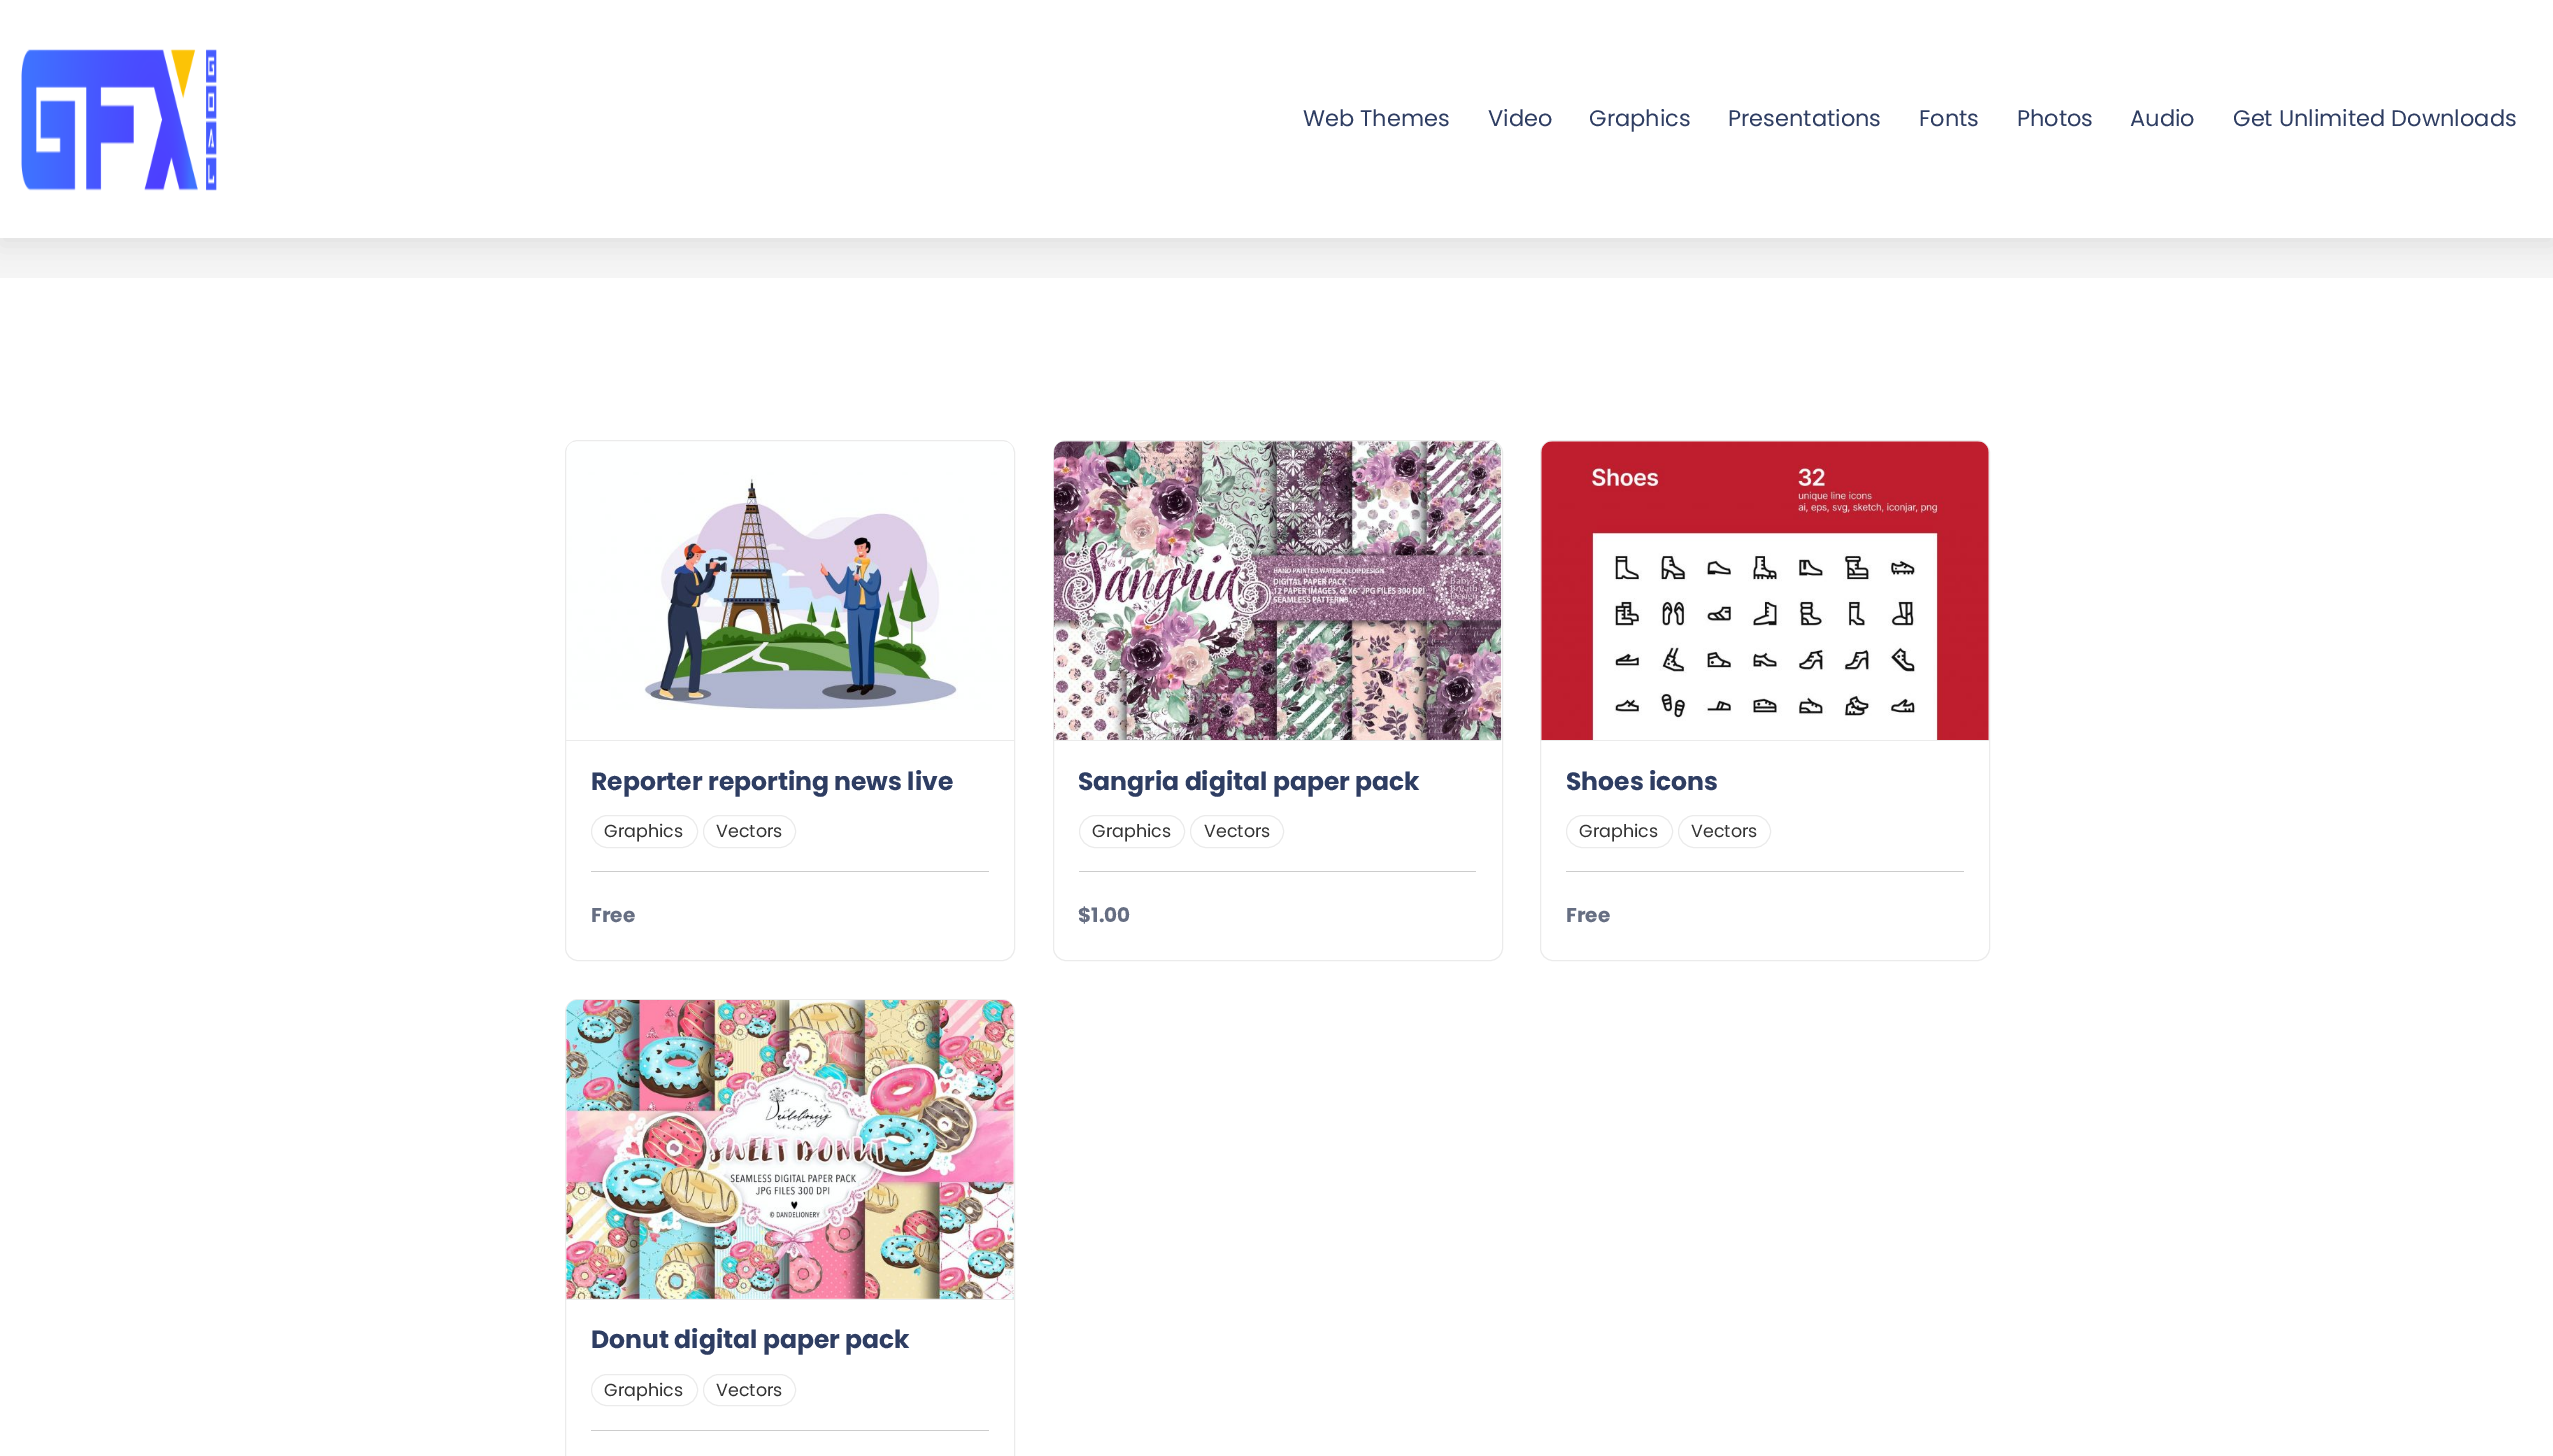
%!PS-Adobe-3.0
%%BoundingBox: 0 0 2553 1456
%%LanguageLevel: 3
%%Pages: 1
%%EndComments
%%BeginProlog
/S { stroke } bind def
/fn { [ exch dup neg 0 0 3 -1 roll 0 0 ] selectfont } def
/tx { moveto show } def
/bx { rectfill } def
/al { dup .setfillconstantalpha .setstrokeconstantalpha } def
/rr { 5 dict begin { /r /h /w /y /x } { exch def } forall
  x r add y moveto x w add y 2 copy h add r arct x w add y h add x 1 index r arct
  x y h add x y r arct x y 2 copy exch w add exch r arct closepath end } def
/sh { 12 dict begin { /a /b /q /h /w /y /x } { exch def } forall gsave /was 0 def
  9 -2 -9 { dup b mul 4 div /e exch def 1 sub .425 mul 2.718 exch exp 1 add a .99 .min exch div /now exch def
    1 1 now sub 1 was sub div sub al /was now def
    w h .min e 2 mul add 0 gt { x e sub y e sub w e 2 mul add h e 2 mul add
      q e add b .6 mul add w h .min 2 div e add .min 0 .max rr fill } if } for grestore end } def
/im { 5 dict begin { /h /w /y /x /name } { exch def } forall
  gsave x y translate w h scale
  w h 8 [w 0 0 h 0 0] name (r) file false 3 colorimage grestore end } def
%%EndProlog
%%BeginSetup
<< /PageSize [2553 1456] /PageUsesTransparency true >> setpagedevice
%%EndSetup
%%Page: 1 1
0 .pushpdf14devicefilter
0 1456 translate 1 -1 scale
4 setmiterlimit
1 setgray
0 0 2553 1456 bx
0.961 setgray
0 238 2553 40 bx
0 setgray
0 8 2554 237 0 12.5 0.08 sh
1 setgray
0 0 2553 238 bx
(image0.raw) 21 49 196 142 im
/Poppins-Regular 22.5 fn
0.18 0.239 0.384 setrgbcolor
(Web Themes) 1303 126 tx
(Video) 1488 126 tx
(Graphics) 1589 126 tx
(Presentations) 1728 126 tx
(Fonts) 1919 126 tx
(Photos) 2017 126 tx
(Audio) 2130 126 tx
(Get Unlimited Downloads) 2233 126 tx
0.922 setgray
565.5 440.5 449 520 12.5 rr S
566 740 448 1 bx
(image1.raw) 567 442 446 268 im
/Poppins-Bold 25 fn
0.18 0.239 0.384 setrgbcolor
(Reporter reporting news live) 591 790 tx
0.922 setgray
591.5 815.5 106 32 16 rr S
/Poppins-Regular 17.5 fn
0.2 setgray
(Graphics) 604 837 tx
0.922 setgray
703.5 815.5 92 32 16 rr S
0.2 setgray
(Vectors) 716 837 tx
0.8 setgray
591 871 398 1 bx
/Poppins-Bold 20 fn
0.4 0.431 0.51 setrgbcolor
(Free) 591 922 tx
0.922 setgray
1053.5 440.5 449 520 12.5 rr S
1054 740 447 1 bx
(image2.raw) 1053 441 449 299 im
/Poppins-Bold 25 fn
0.18 0.239 0.384 setrgbcolor
(Sangria digital paper pack) 1078 790 tx
0.922 setgray
1079.5 815.5 105 32 16 rr S
/Poppins-Regular 17.5 fn
0.2 setgray
(Graphics) 1092 837 tx
0.922 setgray
1190.5 815.5 93 32 16 rr S
0.2 setgray
(Vectors) 1204 837 tx
0.8 setgray
1079 871 397 1 bx
/Poppins-Bold 20 fn
0.4 0.431 0.51 setrgbcolor
($1.00) 1078 922 tx
0.922 setgray
1540.5 440.5 449 520 12.5 rr S
1541 740 448 1 bx
(image3.raw) 1541 441 448 299 im
/Poppins-Bold 25 fn
0.18 0.239 0.384 setrgbcolor
(Shoes icons) 1566 790 tx
0.922 setgray
1566.5 815.5 106 32 16 rr S
/Poppins-Regular 17.5 fn
0.2 setgray
(Graphics) 1579 837 tx
0.922 setgray
1678.5 815.5 92 32 16 rr S
0.2 setgray
(Vectors) 1691 837 tx
0.8 setgray
1566 871 398 1 bx
/Poppins-Bold 20 fn
0.4 0.431 0.51 setrgbcolor
(Free) 1566 922 tx
0.922 setgray
565.5 999.5 449 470 12.5 rr S
566 1299 448 1 bx
(image4.raw) 566 1000 448 299 im
/Poppins-Bold 25 fn
0.18 0.239 0.384 setrgbcolor
(Donut digital paper pack) 591 1348 tx
0.922 setgray
591.5 1374.5 106 31 15.5 rr S
/Poppins-Regular 17.5 fn
0.2 setgray
(Graphics) 604 1396 tx
0.922 setgray
703.5 1374.5 92 31 15.5 rr S
0.2 setgray
(Vectors) 716 1396 tx
0.8 setgray
591 1430 398 1 bx
.poppdf14devicefilter showpage
%%EOF
